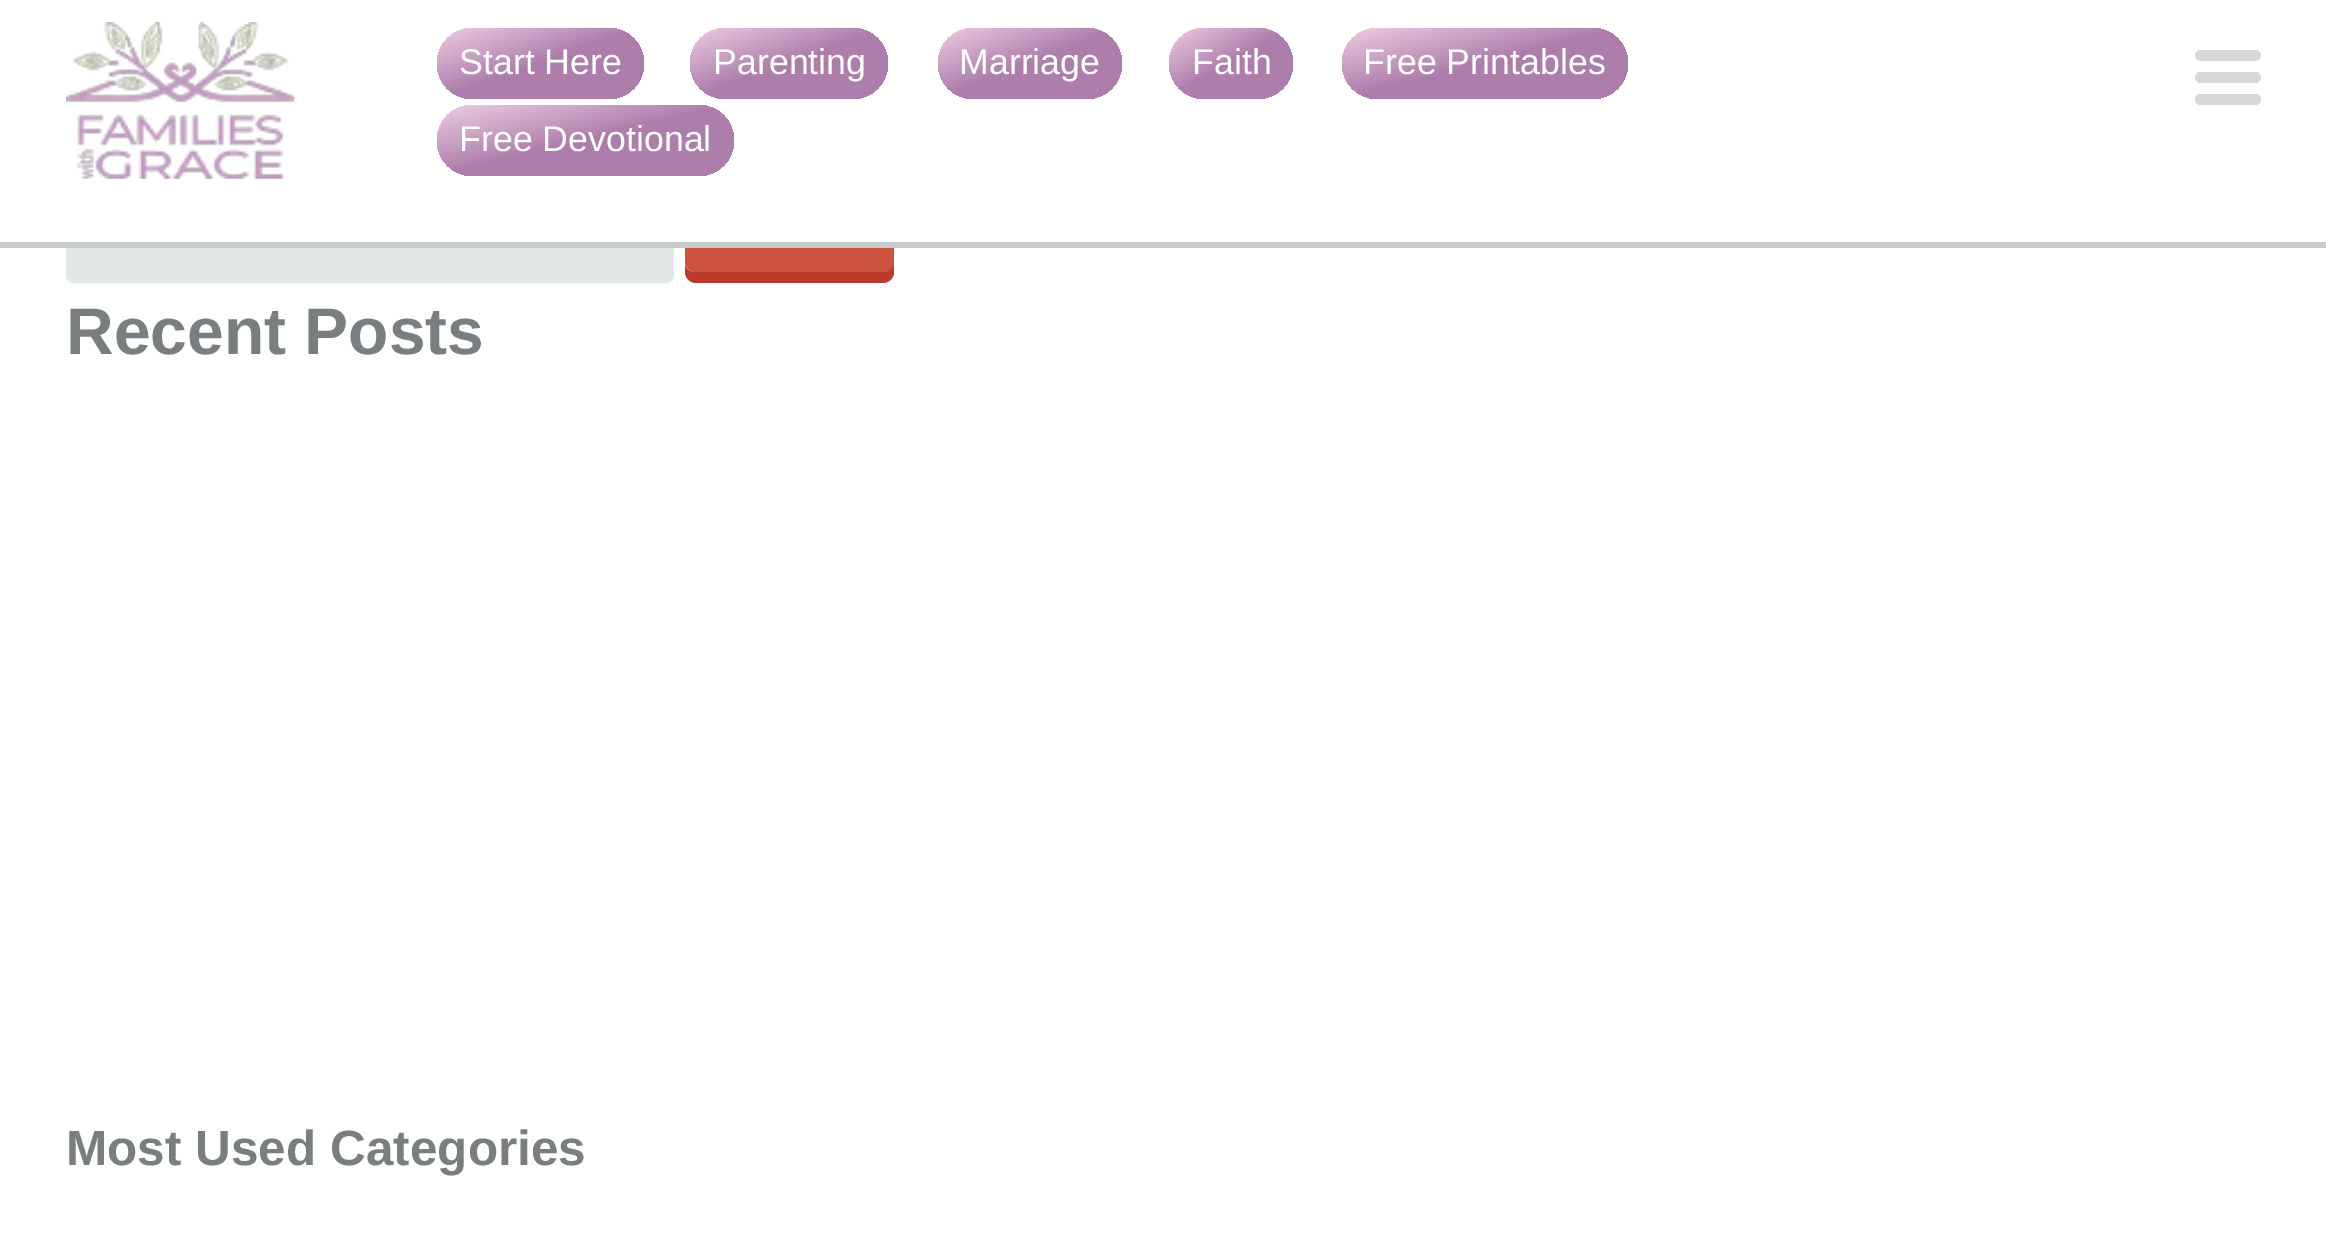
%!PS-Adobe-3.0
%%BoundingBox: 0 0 2326 1242
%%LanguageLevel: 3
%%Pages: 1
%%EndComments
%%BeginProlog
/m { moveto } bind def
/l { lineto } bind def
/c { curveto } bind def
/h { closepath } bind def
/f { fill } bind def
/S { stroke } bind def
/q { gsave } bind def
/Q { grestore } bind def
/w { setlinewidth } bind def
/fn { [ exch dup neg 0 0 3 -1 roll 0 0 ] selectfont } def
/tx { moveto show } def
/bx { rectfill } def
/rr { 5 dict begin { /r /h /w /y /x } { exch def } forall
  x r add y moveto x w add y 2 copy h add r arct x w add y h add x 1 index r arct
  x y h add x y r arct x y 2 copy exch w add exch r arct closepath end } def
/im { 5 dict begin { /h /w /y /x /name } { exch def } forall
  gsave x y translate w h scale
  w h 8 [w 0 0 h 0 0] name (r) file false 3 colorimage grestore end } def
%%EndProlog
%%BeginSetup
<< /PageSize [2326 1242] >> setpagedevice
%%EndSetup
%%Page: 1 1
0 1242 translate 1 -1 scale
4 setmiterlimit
1 setgray
0 0 2326 1242 bx
0.886 0.906 0.91 setrgbcolor
67.5 180.5 605 101 6.5 rr q f Q
3 w
S
0.737 0.231 0.176 setrgbcolor
685 264 m 685 272 l 685 278 690 283 696 283 c 883 283 l 889 283 894 278 894 272 c 894 204 l 894 261 l 894 267 889 272 883 272 c 696 272 l 690 272 686 269 685 264 c h f
0.8 0.322 0.243 setrgbcolor
685 184 209 88 11 rr f
1 setgray
66 179 828 63 bx
0.784 0.796 0.8 setrgbcolor
0 242 2326 6 bx
(image0.raw) 66 22 229 157 im
q 437 28 207 71 35.5 rr clip newpath
<< /ShadingType 2 /ColorSpace /DeviceRGB /Coords [518 -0.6 563 127] /Extend [true true] /Function << /FunctionType 3 /Domain [0 1] /Functions [<< /FunctionType 2 /Domain [0 1] /C0 [0.937 0.804 0.886] /C1 [0.678 0.49 0.671] /N 1 >> << /FunctionType 2 /Domain [0 1] /C0 [0.678 0.49 0.671] /C1 [0.678 0.49 0.671] /N 1 >>] /Bounds [0.5] /Encode [0 1 0 1] >> >> shfill Q
/LiberationSans-Regular 35.75 fn
1 setgray
(Start Here) 459 74 tx
q 690 28 198 71 35.5 rr clip newpath
<< /ShadingType 2 /ColorSpace /DeviceRGB /Coords [766 0 812 127] /Extend [true true] /Function << /FunctionType 3 /Domain [0 1] /Functions [<< /FunctionType 2 /Domain [0 1] /C0 [0.937 0.804 0.886] /C1 [0.678 0.49 0.671] /N 1 >> << /FunctionType 2 /Domain [0 1] /C0 [0.678 0.49 0.671] /C1 [0.678 0.49 0.671] /N 1 >>] /Bounds [0.5] /Encode [0 1 0 1] >> >> shfill Q
(Parenting) 713 74 tx
q 938 28 184 71 35.5 rr clip newpath
<< /ShadingType 2 /ColorSpace /DeviceRGB /Coords [1006 1.1 1054 125] /Extend [true true] /Function << /FunctionType 3 /Domain [0 1] /Functions [<< /FunctionType 2 /Domain [0 1] /C0 [0.937 0.804 0.886] /C1 [0.678 0.49 0.671] /N 1 >> << /FunctionType 2 /Domain [0 1] /C0 [0.678 0.49 0.671] /C1 [0.678 0.49 0.671] /N 1 >>] /Bounds [0.5] /Encode [0 1 0 1] >> >> shfill Q
(Marriage) 959 74 tx
q 1169 28 124 71 35.5 rr clip newpath
<< /ShadingType 2 /ColorSpace /DeviceRGB /Coords [1200 10 1262 117] /Extend [true true] /Function << /FunctionType 3 /Domain [0 1] /Functions [<< /FunctionType 2 /Domain [0 1] /C0 [0.937 0.804 0.886] /C1 [0.678 0.49 0.671] /N 1 >> << /FunctionType 2 /Domain [0 1] /C0 [0.678 0.49 0.671] /C1 [0.678 0.49 0.671] /N 1 >>] /Bounds [0.5] /Encode [0 1 0 1] >> >> shfill Q
(Faith) 1192 74 tx
q 1342 28 286 71 35.5 rr clip newpath
<< /ShadingType 2 /ColorSpace /DeviceRGB /Coords [1468 -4 1502 131] /Extend [true true] /Function << /FunctionType 3 /Domain [0 1] /Functions [<< /FunctionType 2 /Domain [0 1] /C0 [0.937 0.804 0.886] /C1 [0.678 0.49 0.671] /N 1 >> << /FunctionType 2 /Domain [0 1] /C0 [0.678 0.49 0.671] /C1 [0.678 0.49 0.671] /N 1 >>] /Bounds [0.5] /Encode [0 1 0 1] >> >> shfill Q
(Free Printables) 1363 74 tx
q 437 105 297 71 35.5 rr clip newpath
<< /ShadingType 2 /ColorSpace /DeviceRGB /Coords [569 73 602 208] /Extend [true true] /Function << /FunctionType 3 /Domain [0 1] /Functions [<< /FunctionType 2 /Domain [0 1] /C0 [0.937 0.804 0.886] /C1 [0.678 0.49 0.671] /N 1 >> << /FunctionType 2 /Domain [0 1] /C0 [0.678 0.49 0.671] /C1 [0.678 0.49 0.671] /N 1 >>] /Bounds [0.5] /Encode [0 1 0 1] >> >> shfill Q
(Free Devotional) 459 151 tx
/LiberationSans-Bold 66 fn
0.475 0.498 0.506 setrgbcolor
(Recent Posts) 66 354 tx
/LiberationSans-Bold 49.5 fn
(Most Used Categories) 66 1165 tx
0.843 0.851 0.851 setrgbcolor
2195 72 66 11 5.5 rr f
2195 50 66 11 5.5 rr f
2195 94 66 11 5.5 rr f
showpage
%%EOF
